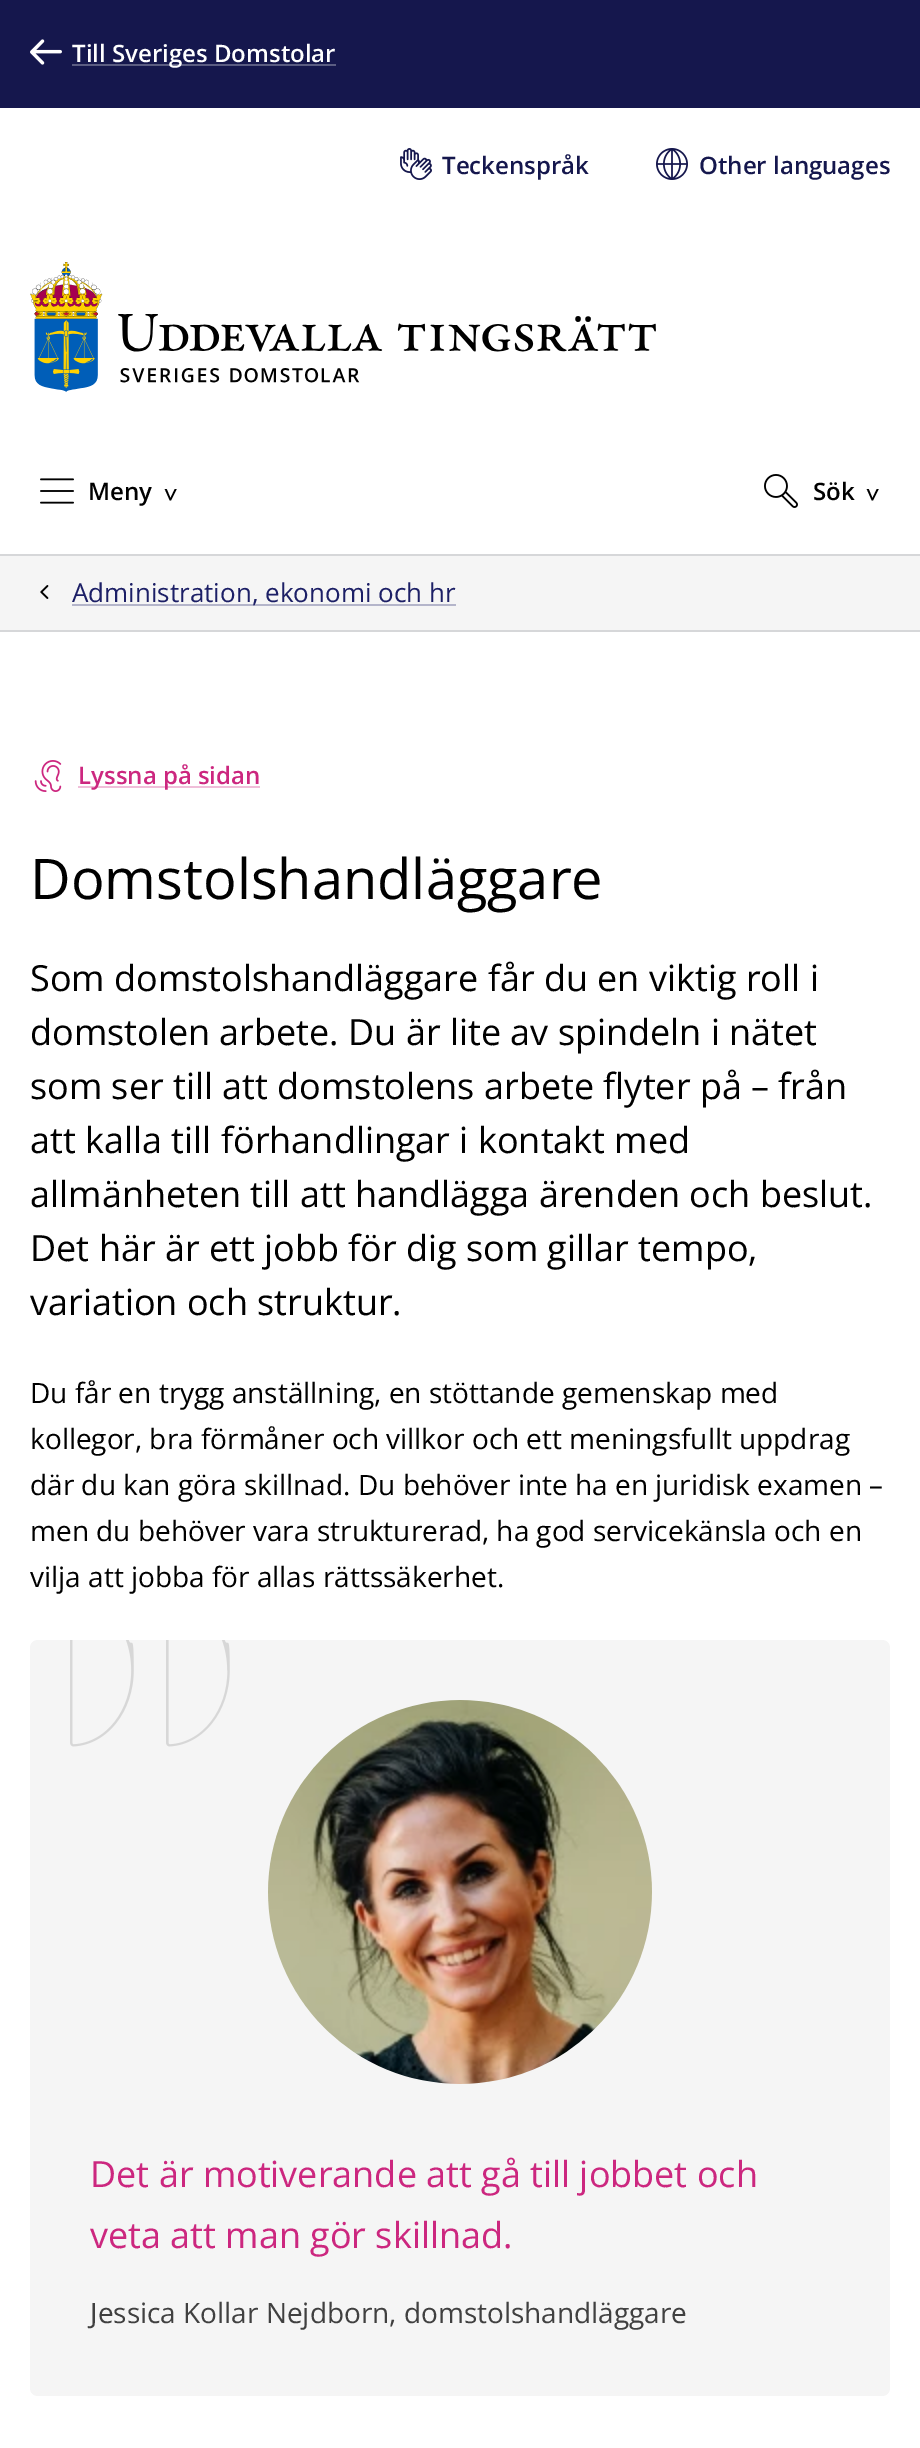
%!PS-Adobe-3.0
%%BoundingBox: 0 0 920 2448
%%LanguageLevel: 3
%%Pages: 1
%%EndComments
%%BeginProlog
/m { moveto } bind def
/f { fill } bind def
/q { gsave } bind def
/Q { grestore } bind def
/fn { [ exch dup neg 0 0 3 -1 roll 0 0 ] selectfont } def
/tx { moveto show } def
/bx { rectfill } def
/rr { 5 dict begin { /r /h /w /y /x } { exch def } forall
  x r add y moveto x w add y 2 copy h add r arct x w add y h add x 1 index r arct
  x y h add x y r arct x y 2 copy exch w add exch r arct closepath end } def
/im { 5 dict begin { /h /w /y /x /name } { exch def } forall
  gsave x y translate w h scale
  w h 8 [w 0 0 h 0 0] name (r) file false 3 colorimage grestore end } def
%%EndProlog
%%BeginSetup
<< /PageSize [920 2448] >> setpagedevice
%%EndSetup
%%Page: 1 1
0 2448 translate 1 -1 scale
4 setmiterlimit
1 setgray
0 0 920 2448 bx
0.839 0.843 0.851 setrgbcolor
0 554 920 2 bx
0.082 0.09 0.302 setrgbcolor
0 0 920 108 bx
(image0.raw) 30 39 32 26 im
0.357 0.365 0.51 setrgbcolor
72 64 264 2 bx
/OpenSans-SemiBold 24 fn
1 setgray
(Till Sveriges Domstolar) 72 62 tx
(image1.raw) 400 148 32 32 im
0.082 0.09 0.302 setrgbcolor
(Teckenspråk) 442 174 tx
(image2.raw) 656 148 32 32 im
(Other languages) 699 174 tx
(image3.raw) 30 262 626 130 im
(image4.raw) 40 478 34 26 im
0 setgray
(Meny) 88 500 tx
q 162 488 translate 90 rotate 0 0 m -4 0 (>) ashow Q
(image5.raw) 764 474 34 34 im
(Sök) 813 500 tx
q 864 488 translate 90 rotate 0 0 m -4 0 (>) ashow Q
0.961 setgray
0 556 920 74 bx
0.839 0.843 0.851 setrgbcolor
0 630 920 2 bx
(image6.raw) 40 585 9 14 im
0.706 0.71 0.792 setrgbcolor
72 604 384 2 bx
/OpenSans-Regular 26 fn
0.11 0.122 0.4 setrgbcolor
(Administration, ekonomi och hr) 72 602 tx
(image7.raw) 34 760 28 32 im
0.941 0.745 0.851 setrgbcolor
78 786 182 2 bx
/OpenSans-SemiBold 24 fn
0.8 0.153 0.498 setrgbcolor
(Lyssna på sidan) 78 784 tx
/OpenSans-Regular 56 fn
0 setgray
(Domstolshandläggare) 30 899 tx
/OpenSans-Regular 36 fn
(Som domstolshandläggare får du en viktig roll i) 30 991 tx
(domstolen arbete. Du är lite av spindeln i nätet) 30 1045 tx
(som ser till att domstolens arbete flyter på – från) 30 1099 tx
(att kalla till förhandlingar i kontakt med) 30 1153 tx
(allmänheten till att handlägga ärenden och beslut.) 30 1207 tx
(Det här är ett jobb för dig som gillar tempo,) 30 1261 tx
(variation och struktur.) 30 1315 tx
/OpenSans-Regular 28 fn
(Du får en trygg anställning, en stöttande gemenskap med) 30 1403 tx
(kollegor, bra förmåner och villkor och ett meningsfullt uppdrag) 30 1449 tx
(där du kan göra skillnad. Du behöver inte ha en juridisk examen –) 30 1495 tx
(men du behöver vara strukturerad, ha god servicekänsla och en) 30 1541 tx
(vilja att jobba för allas rättssäkerhet.) 30 1587 tx
0.961 setgray
30 1640 860 756 8 rr f
(image8.raw) 70 1640 160 107 im
(image9.raw) 268 1700 384 384 im
/OpenSans-Regular 36 fn
0.8 0.153 0.498 setrgbcolor
(Det är motiverande att gå till jobbet och) 90 2187 tx
(veta att man gör skillnad.) 90 2248 tx
/OpenSans-Regular 28 fn
0.251 setgray
(Jessica Kollar Nejdborn, domstolshandläggare) 90 2323 tx
showpage
%%EOF
